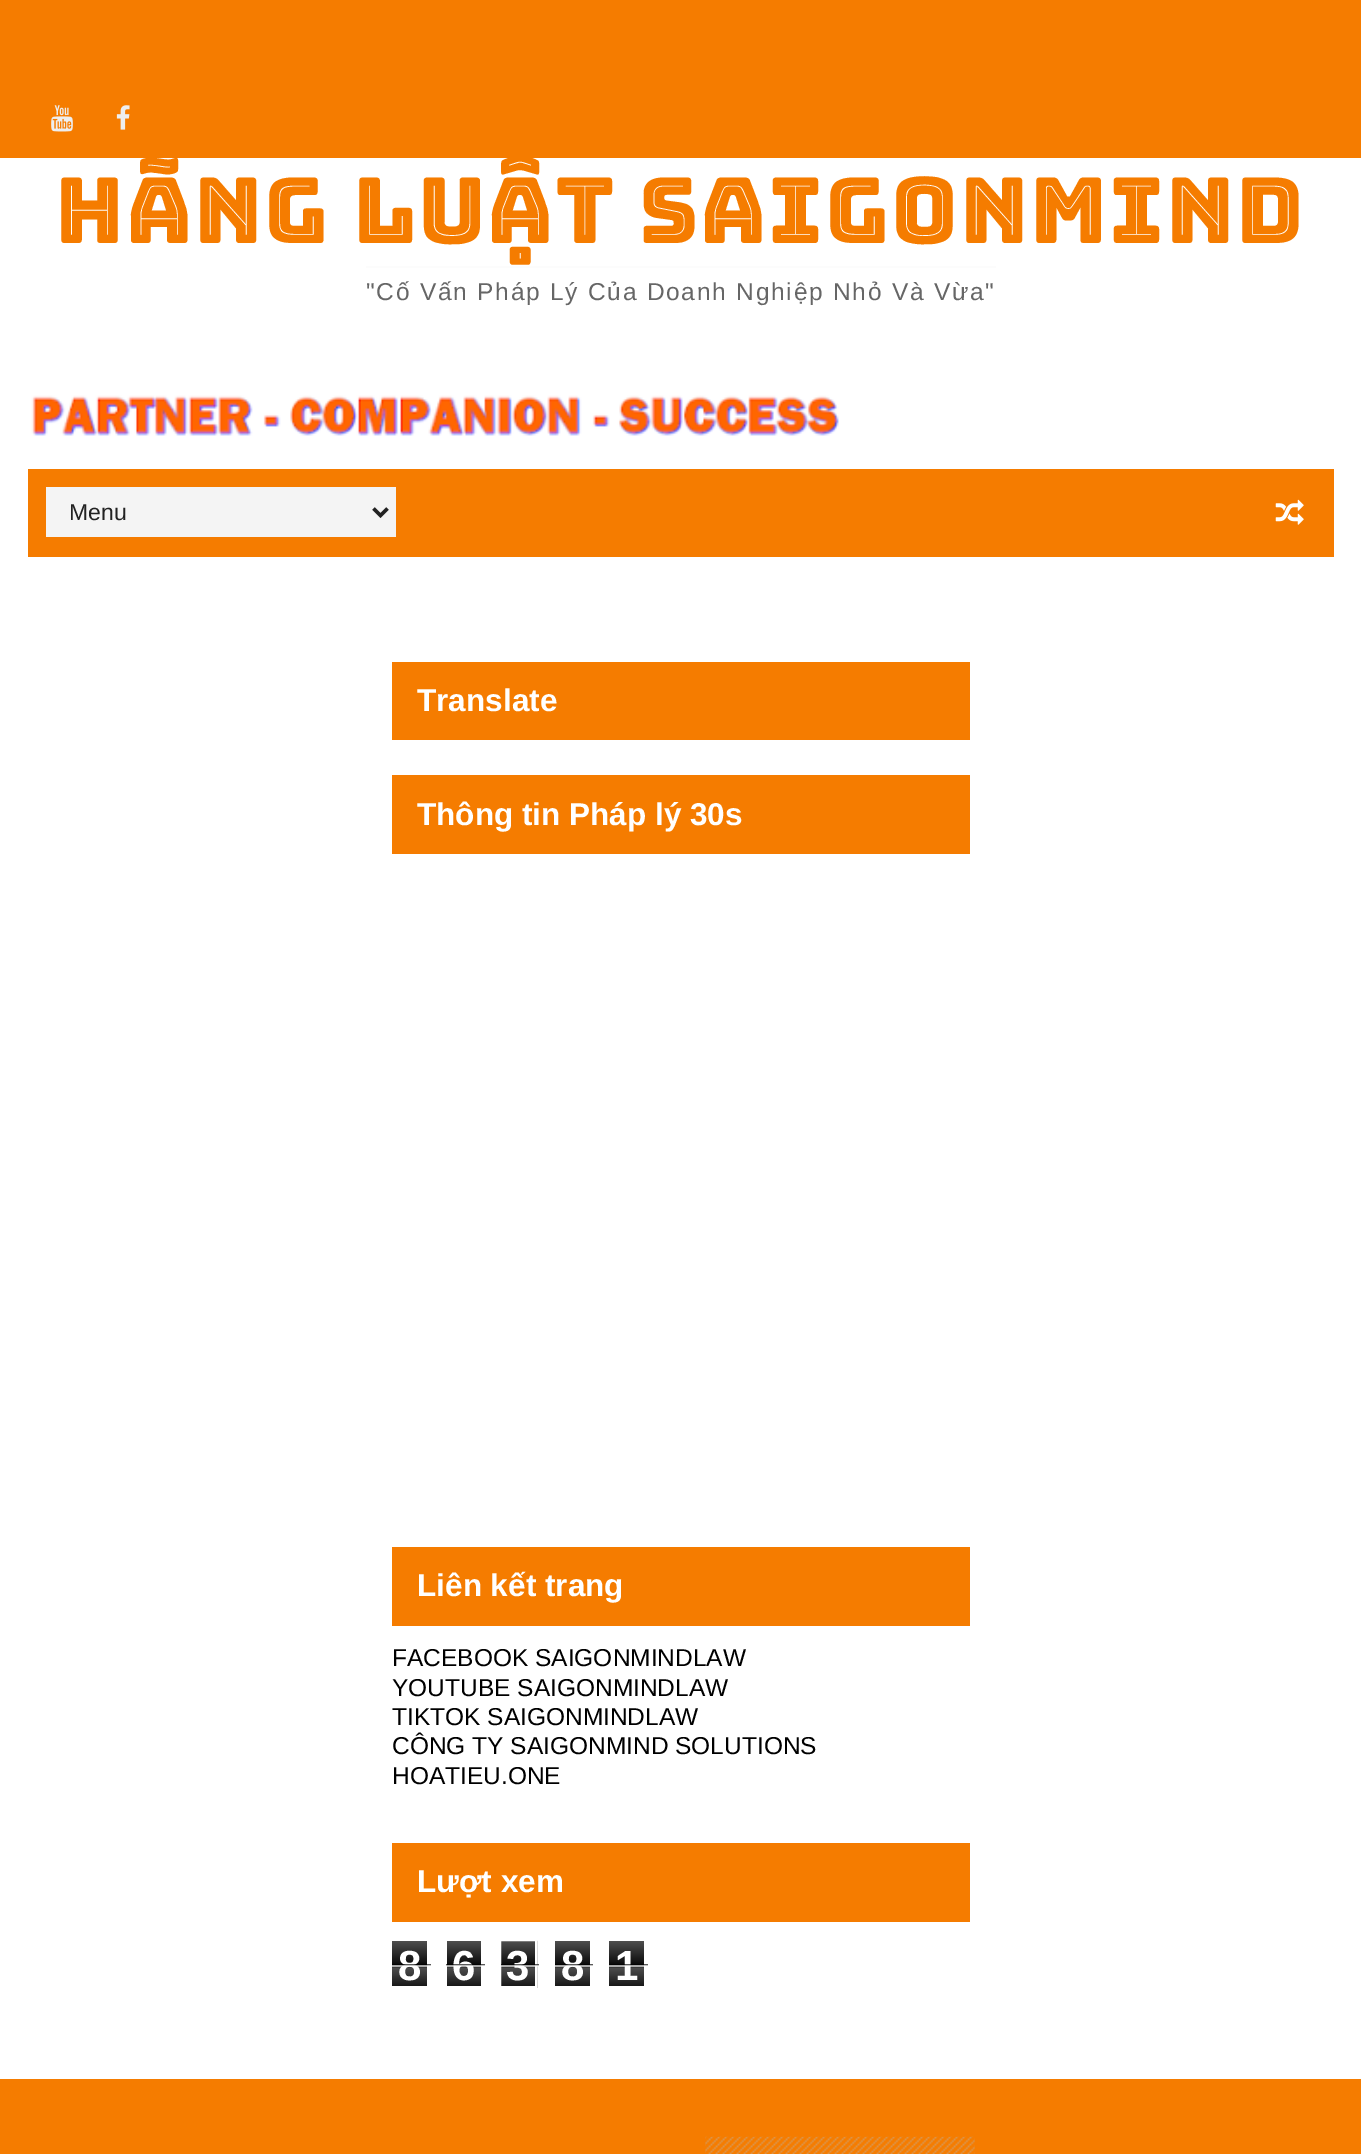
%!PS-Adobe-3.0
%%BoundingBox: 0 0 1361 2154
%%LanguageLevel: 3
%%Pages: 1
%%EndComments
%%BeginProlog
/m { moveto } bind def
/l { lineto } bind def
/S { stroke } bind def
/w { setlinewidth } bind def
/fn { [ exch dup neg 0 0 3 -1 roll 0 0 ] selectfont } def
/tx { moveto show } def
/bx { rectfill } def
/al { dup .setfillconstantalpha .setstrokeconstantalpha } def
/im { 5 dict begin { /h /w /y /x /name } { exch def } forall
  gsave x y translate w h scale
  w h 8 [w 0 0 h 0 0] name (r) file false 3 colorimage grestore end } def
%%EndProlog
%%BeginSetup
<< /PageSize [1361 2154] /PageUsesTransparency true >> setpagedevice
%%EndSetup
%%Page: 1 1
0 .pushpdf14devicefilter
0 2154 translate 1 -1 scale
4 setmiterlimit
1 setgray
0 0 1361 2154 bx
0.961 0.486 0 setrgbcolor
0 0 1361 158 bx
(image0.raw) 51 105 22 27 im
(image1.raw) 116 105 14 25 im
/BungeeInline-Regular 91 fn
55 243 m 1.75 0 (HÃNG LUẬT SAIGONMIND) ashow
/LiberationSans-Regular 24.5 fn
0.4 setgray
366 300 m 1.75 0 ("Cố Vấn Pháp Lý Của Doanh Nghiệp Nhỏ Và Vừa") ashow
0.988 setgray
366 266 630 2 bx
(image2.raw) 31 395 808 41 im
0.961 0.486 0 setrgbcolor
28 469 1306 88 bx
0.957 setgray
46 487 350 50 bx
0.133 setgray
3.5 w
373.5 508.5 m 380.5 515.5 l 387.5 508.5 l S
/LiberationSans-Regular 23 fn
(Menu) 69 520 tx
(image3.raw) 1275 499 29 26 im
0.961 0.486 0 setrgbcolor
392 662 578 78 bx
/LiberationSans-Bold 31.5 fn
1 setgray
(Translate) 417 711 tx
0.961 0.486 0 setrgbcolor
392 775 578 79 bx
1 setgray
(Thông tin Pháp lý 30s) 417 825 tx
0.961 0.486 0 setrgbcolor
392 1547 578 79 bx
1 setgray
(Liên kết trang) 417 1596 tx
/LiberationSans-Regular 24.5 fn
0 setgray
(FACEBOOK SAIGONMINDLAW) 392 1666 tx
(YOUTUBE SAIGONMINDLAW) 392 1696 tx
(TIKTOK SAIGONMINDLAW) 392 1725 tx
(CÔNG TY SAIGONMIND SOLUTIONS) 392 1754 tx
(HOATIEU.ONE) 392 1784 tx
0.961 0.486 0 setrgbcolor
392 1843 578 79 bx
/LiberationSans-Bold 31.5 fn
1 setgray
(Lượt xem) 417 1892 tx
(image4.raw) 392 1941 35 45 im
/LiberationSans-Bold 42 fn
(8) 398 1980 tx
0.65 al
0 setgray
392 1964 39 2 bx
1 setgray
392 1965 39 2 bx
1 al
(image5.raw) 447 1941 34 45 im
(6) 452 1980 tx
0.65 al
0 setgray
446 1964 39 2 bx
1 setgray
446 1965 39 2 bx
1 al
(image6.raw) 501 1940 37 48 im
2 w
500 1940 36 47 rectstroke
(3) 506 1980 tx
0.65 al
0 setgray
501 1964 38 2 bx
1 setgray
501 1965 38 2 bx
1 al
(image4.raw) 555 1941 35 45 im
(8) 561 1980 tx
0.65 al
0 setgray
555 1964 38 2 bx
1 setgray
555 1965 38 2 bx
1 al
(image4.raw) 609 1941 35 45 im
(1) 615 1980 tx
0.65 al
0 setgray
609 1964 39 2 bx
1 setgray
609 1965 39 2 bx
1 al
0.961 0.486 0 setrgbcolor
0 2079 1361 75 bx
(image7.raw) 705 2136 270 18 im
.poppdf14devicefilter showpage
%%EOF
